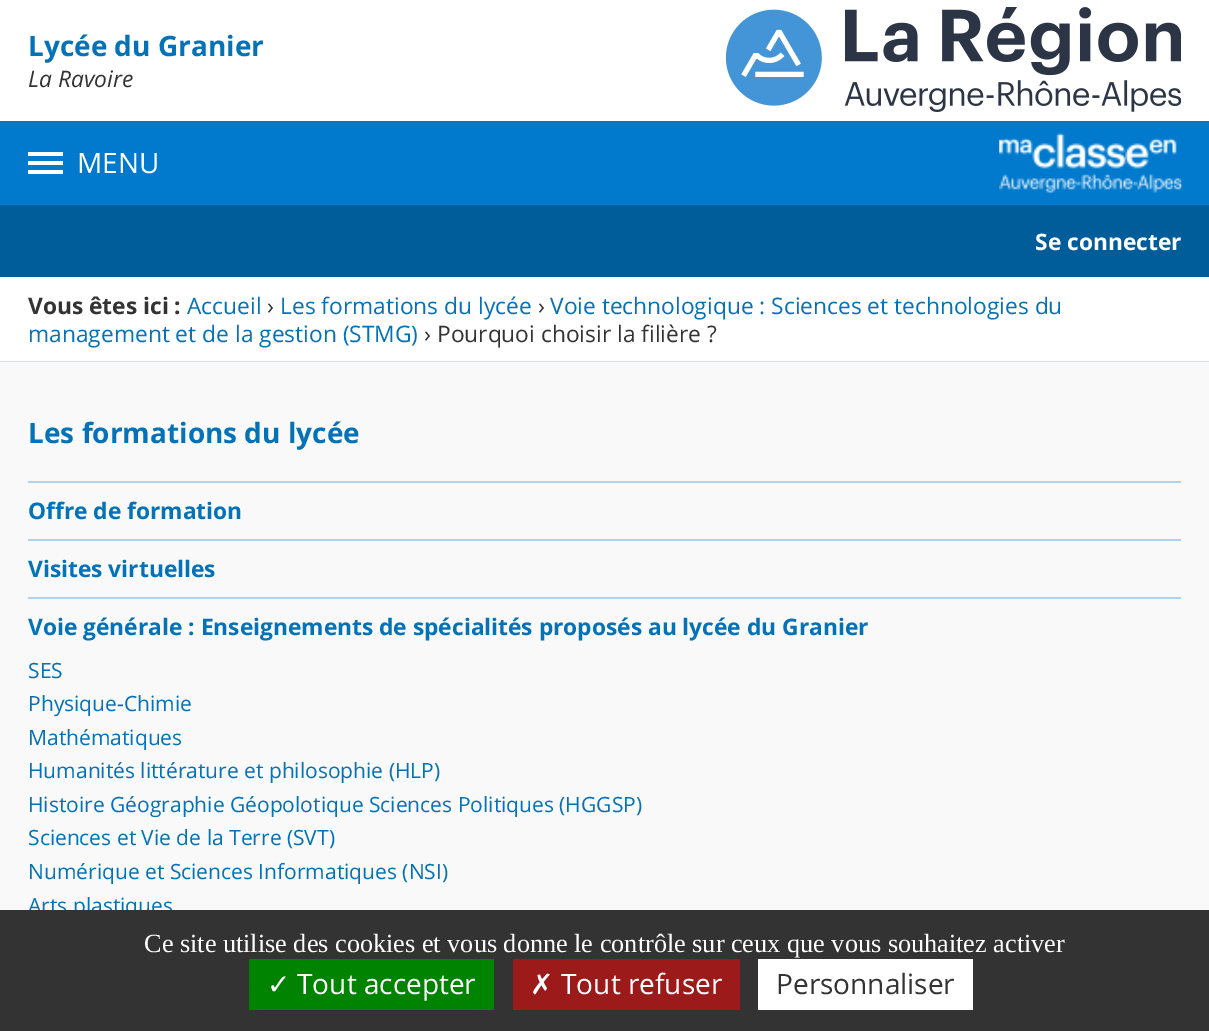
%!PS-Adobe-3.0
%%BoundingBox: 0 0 1209 1031
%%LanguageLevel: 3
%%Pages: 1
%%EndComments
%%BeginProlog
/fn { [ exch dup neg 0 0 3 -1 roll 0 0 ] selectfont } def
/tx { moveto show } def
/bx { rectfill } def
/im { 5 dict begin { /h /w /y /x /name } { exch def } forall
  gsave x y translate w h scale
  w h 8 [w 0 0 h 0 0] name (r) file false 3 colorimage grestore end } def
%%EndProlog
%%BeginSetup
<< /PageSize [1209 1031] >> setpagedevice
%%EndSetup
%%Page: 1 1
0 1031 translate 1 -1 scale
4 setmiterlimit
1 setgray
0 0 1209 1031 bx
/OpenSans-Bold 28 fn
0.012 0.447 0.718 setrgbcolor
(Lycée du Granier) 28 56 tx
/OpenSans-Italic 22.75 fn
0.2 setgray
(La Ravoire) 28 87 tx
(image0.raw) 725 7 456 105 im
0.004 0.478 0.804 setrgbcolor
0 121 1209 84 bx
(image1.raw) 999 133 183 60 im
1 setgray
28 152 35 4 bx
28 161 35 4 bx
28 170 35 4 bx
/OpenSans-Regular 28 fn
(MENU) 77 173 tx
0.004 0.361 0.604 setrgbcolor
0 205 1209 72 bx
/OpenSans-Bold 22.75 fn
1 setgray
(Se connecter) 1035 250 tx
0.843 0.871 0.886 setrgbcolor
0 361 1209 1 bx
0.2 setgray
(Vous êtes ici :) 28 314 tx
/OpenSans-Regular 22.75 fn
0.012 0.447 0.718 setrgbcolor
(Accueil) 187 314 tx
0.2 setgray
(›) 267 314 tx
0.012 0.447 0.718 setrgbcolor
(Les formations du lycée) 280 314 tx
0.2 setgray
(›) 538 314 tx
0.012 0.447 0.718 setrgbcolor
(Voie technologique : Sciences et technologies du) 550 314 tx
(management et de la gestion \(STMG\)) 28 342 tx
0.2 setgray
(› Pourquoi choisir la filière ?) 424 342 tx
0.976 setgray
0 362 1209 548 bx
/OpenSans-Bold 28 fn
0.012 0.447 0.718 setrgbcolor
(Les formations du lycée) 28 443 tx
0.686 0.827 0.925 setrgbcolor
28 481 1153 2 bx
28 539 1153 2 bx
/OpenSans-Bold 22.75 fn
0.012 0.447 0.718 setrgbcolor
(Offre de formation) 28 519 tx
0.686 0.827 0.925 setrgbcolor
28 597 1153 2 bx
0.012 0.447 0.718 setrgbcolor
(Visites virtuelles) 28 577 tx
(Voie générale : Enseignements de spécialités proposés au lycée du Granier) 28 635 tx
/OpenSans-Regular 21 fn
(SES) 28 678 tx
(Physique-Chimie) 28 711 tx
(Mathématiques) 28 745 tx
(Humanités littérature et philosophie \(HLP\)) 28 778 tx
(Histoire Géographie Géopolotique Sciences Politiques \(HGGSP\)) 28 812 tx
(Sciences et Vie de la Terre \(SVT\)) 28 845 tx
(Numérique et Sciences Informatiques \(NSI\)) 28 879 tx
(Arts plastiques) 28 913 tx
0.2 setgray
0 910 1209 121 bx
/LiberationSerif-Regular 26.25 fn
1 setgray
(Ce site utilise des cookies et vous donne le contrôle sur ceux que vous souhaitez activer) 144 952 tx
0 0.514 0 setrgbcolor
249 959 245 51 bx
/DejaVuSans-Regular 28 fn
1 setgray
(✓) 267 994 tx
/OpenSans-Regular 28 fn
(Tout accepter) 297 994 tx
0.612 0.102 0.102 setrgbcolor
513 959 227 51 bx
/DejaVuSans-Regular 28 fn
1 setgray
(✗) 530 994 tx
/OpenSans-Regular 28 fn
(Tout refuser) 561 994 tx
758 959 215 51 bx
0.2 setgray
(Personnaliser) 776 994 tx
showpage
%%EOF
